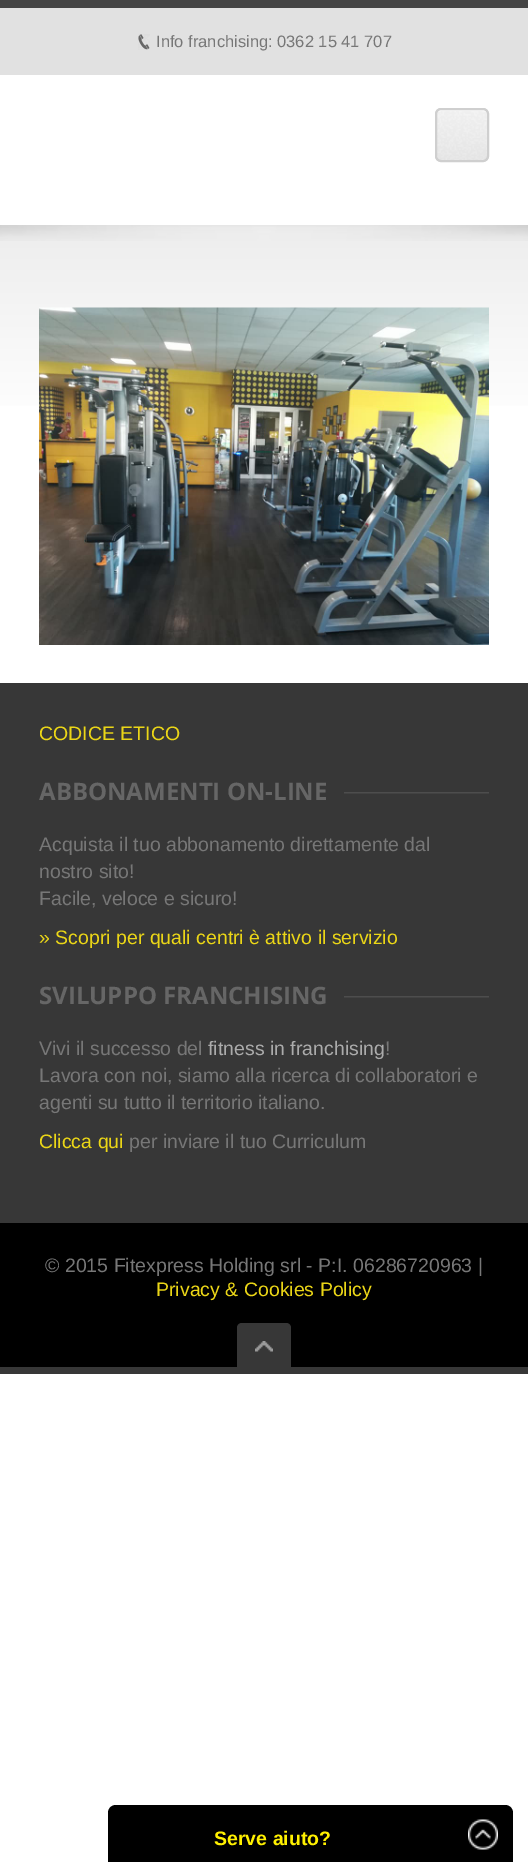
%!PS-Adobe-3.0
%%BoundingBox: 0 0 528 1862
%%LanguageLevel: 3
%%Pages: 1
%%EndComments
%%BeginProlog
/m { moveto } bind def
/l { lineto } bind def
/c { curveto } bind def
/h { closepath } bind def
/f { fill } bind def
/S { stroke } bind def
/q { gsave } bind def
/Q { grestore } bind def
/w { setlinewidth } bind def
/fn { [ exch dup neg 0 0 3 -1 roll 0 0 ] selectfont } def
/tx { moveto show } def
/bx { rectfill } def
/rr { 5 dict begin { /r /h /w /y /x } { exch def } forall
  x r add y moveto x w add y 2 copy h add r arct x w add y h add x 1 index r arct
  x y h add x y r arct x y 2 copy exch w add exch r arct closepath end } def
/im { 5 dict begin { /h /w /y /x /name } { exch def } forall
  gsave x y translate w h scale
  w h 8 [w 0 0 h 0 0] name (r) file false 3 colorimage grestore end } def
%%EndProlog
%%BeginSetup
<< /PageSize [528 1862] >> setpagedevice
%%EndSetup
%%Page: 1 1
0 1862 translate 1 -1 scale
4 setmiterlimit
1 setgray
0 0 528 1862 bx
0.267 setgray
0 0 528 8 bx
0.882 setgray
0 8 528 67 bx
(image0.raw) 138 34 12 16 im
/LiberationSans-Regular 16.5 fn
0.467 setgray
(Info franchising: 0362 15 41 707) 156 47 tx
(image1.raw) 435 108 54 54 im
0.984 setgray
441 111 m 483 111 l 485 111 488 113 488 116 c 488 115 l 488 112 486 110 483 110 c 442 110 l 440 110 439 111 438 112 c h f
0.812 setgray
2 w
436 109 52 52 5 rr S
q 0 225 m 528 225 l 528 406 l 0 406 l h clip newpath
<< /ShadingType 2 /ColorSpace /DeviceRGB /Coords [264 225 264 435] /Extend [true true] /Function << /FunctionType 2 /Domain [0 1] /C0 [0.929 0.929 0.929] /C1 [1 1 1] /N 1 >> >> shfill Q
(image2.raw) 0 225 528 16 im
(image3.raw) 39 307 450 338 im
0.216 setgray
0 683 528 540 bx
/LiberationSans-Regular 19.5 fn
0.922 0.839 0.09 setrgbcolor
(CODICE ETICO) 39 740 tx
(image4.raw) 344 792 145 2 im
/OpenSans-Bold 24 fn
0.4 setgray
(ABBONAMENTI ON-LINE) 39 800 tx
/LiberationSans-Regular 19.5 fn
0.467 setgray
(Acquista il tuo abbonamento direttamente dal) 39 851 tx
(nostro sito!) 39 878 tx
(Facile, veloce e sicuro!) 39 905 tx
0.922 0.839 0.09 setrgbcolor
(» Scopri per quali centri è attivo il servizio) 39 944 tx
(image4.raw) 344 996 145 2 im
/OpenSans-Bold 24 fn
0.4 setgray
(SVILUPPO FRANCHISING) 39 1004 tx
/LiberationSans-Regular 19.5 fn
0.467 setgray
(Vivi il successo del) 39 1055 tx
0.671 setgray
(fitness in franchising) 208 1055 tx
0.467 setgray
(!) 385 1055 tx
(Lavora con noi, siamo alla ricerca di collaboratori e) 39 1082 tx
(agenti su tutto il territorio italiano.) 39 1109 tx
0.922 0.839 0.09 setrgbcolor
(Clicca qui) 39 1148 tx
0.467 setgray
(per inviare il tuo Curriculum) 129 1148 tx
0 setgray
0 1223 528 144 bx
0.467 setgray
(© 2015 Fitexpress Holding srl - P:I. 06286720963 |) 45 1272 tx
0.922 0.839 0.09 setrgbcolor
(Privacy & Cookies Policy) 156 1296 tx
0.216 setgray
242 1323 m 286 1323 l 289 1323 291 1325 291 1328 c 291 1367 l 237 1367 l 237 1328 l 237 1325 239 1323 242 1323 c h f
(image5.raw) 255 1341 18 11 im
0 1367 528 7 bx
0 setgray
116 1805 m 505 1805 l 509.5 1805 513 1808.5 513 1813 c 513 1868 l 108 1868 l 108 1813 l 108 1808.5 111.5 1805 116 1805 c h f
/LiberationSans-Bold 19.5 fn
1 0.941 0 setrgbcolor
(Serve aiuto?) 214 1845 tx
(image6.raw) 468 1819 30 31 im
showpage
%%EOF
